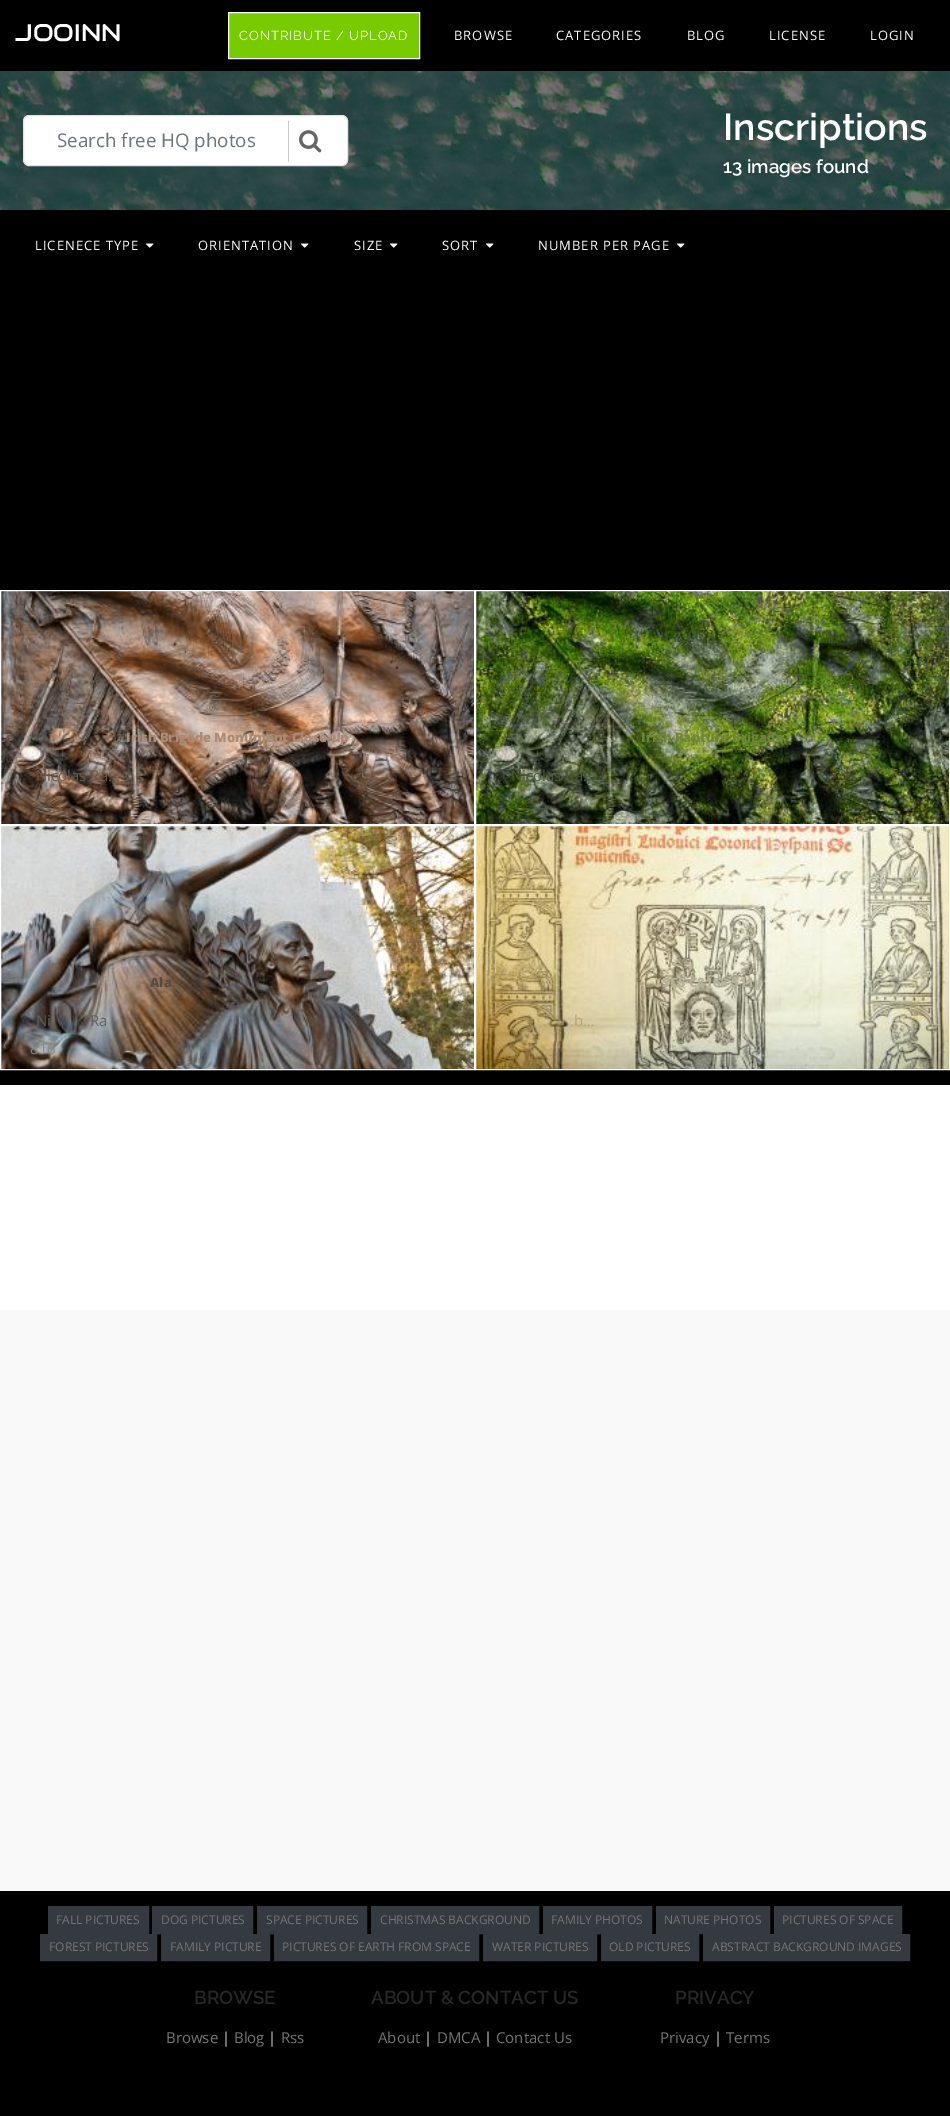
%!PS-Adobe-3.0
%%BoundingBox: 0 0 950 2116
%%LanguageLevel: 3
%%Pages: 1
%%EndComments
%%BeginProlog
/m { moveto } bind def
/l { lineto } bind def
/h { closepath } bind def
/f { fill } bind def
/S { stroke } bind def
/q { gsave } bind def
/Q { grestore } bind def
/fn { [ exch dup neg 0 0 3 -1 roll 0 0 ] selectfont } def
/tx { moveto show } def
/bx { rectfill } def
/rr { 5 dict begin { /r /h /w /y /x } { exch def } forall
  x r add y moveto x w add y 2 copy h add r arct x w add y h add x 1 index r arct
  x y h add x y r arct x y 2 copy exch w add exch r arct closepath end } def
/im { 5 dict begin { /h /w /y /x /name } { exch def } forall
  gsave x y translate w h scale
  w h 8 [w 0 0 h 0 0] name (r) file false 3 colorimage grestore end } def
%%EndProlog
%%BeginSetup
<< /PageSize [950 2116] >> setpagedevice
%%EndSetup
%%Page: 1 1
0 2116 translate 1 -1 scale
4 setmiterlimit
0.976 setgray
0 0 950 2116 bx
0 setgray
0 0 950 71 bx
/Audiowide-Regular 24 fn
1 setgray
(JOOINN) 15 41 tx
0.471 0.796 0.004 setrgbcolor
228.5 12.5 m 419.5 12.5 l 419.5 58.5 l 228.5 58.5 l h q f Q
1 setgray
S
/Raleway-Regular 13 fn
239 40 m 1 0 (CONTRIBUTE / UPLOAD) ashow
/OpenSans-Regular 13 fn
454 40 m 1 0 (BROWSE) ashow
556 40 m 1 0 (CATEGORIES) ashow
687 40 m 1 0 (BLOG) ashow
769 40 m 1 0 (LICENSE) ashow
870 40 m 1 0 (LOGIN) ashow
0 setgray
0 210 950 875 bx
(image0.raw) 0 71 950 139 im
1 setgray
23.5 115.5 324 50 5.5 rr q f Q
0.894 setgray
S
/OpenSans-Regular 18.75 fn
0.424 0.459 0.49 setrgbcolor
(Search free HQ photos) 57 147 tx
0.8 setgray
288 121 1 41 bx
(image1.raw) 299 130 23 23 im
/Raleway-SemiBold 37.5 fn
1 setgray
(Inscriptions) 723 140 tx
/Raleway-SemiBold 18.75 fn
(13 images found) 723 173 tx
/OpenSans-Regular 13 fn
35 250 m 1 0 (LICENECE TYPE) ashow
(image2.raw) 146 243 8 5 im
198 250 m 1 0 (ORIENTATION) ashow
(image2.raw) 301 243 8 5 im
354 250 m 1 0 (SIZE) ashow
(image2.raw) 390 243 8 5 im
442 250 m 1 0 (SORT) ashow
(image2.raw) 486 243 8 5 im
538 250 m 1 0 (NUMBER PER PAGE) ashow
(image2.raw) 677 243 8 5 im
(image3.raw) 1 591 473 233 im
0.5 590.5 474 234 rectstroke
/OpenSans-ExtraBold 13 fn
0.663 0.545 0.467 setrgbcolor
(Irish Brigade Monument Close-up) 126 742 tx
/OpenSans-Regular 15 fn
0.42 0.349 0.302 setrgbcolor
(Nicolas Ra…) 36 781 tx
(image4.raw) 476 591 473 233 im
1 setgray
475.5 590.5 474 234 rectstroke
/OpenSans-ExtraBold 13 fn
0.431 0.522 0.216 setrgbcolor
(Irish Rapture Brigade) 641 742 tx
/OpenSans-Regular 15 fn
0.298 0.345 0.231 setrgbcolor
(Nicolas Ra…) 511 781 tx
(image5.raw) 1 826 473 243 im
1 setgray
0.5 825.5 474 244 rectstroke
/OpenSans-ExtraBold 13 fn
0.353 0.29 0.247 setrgbcolor
(Ala) 150 987 tx
/OpenSans-Regular 15 fn
0.38 0.369 0.369 setrgbcolor
(Ni) 36 1026 tx
(Ra) 90 1026 tx
0.533 0.537 0.533 setrgbcolor
(816) 30 1054 tx
(image6.raw) 476 826 473 243 im
1 setgray
475.5 825.5 474 244 rectstroke
/OpenSans-ExtraBold 13 fn
0.714 0.698 0.604 setrgbcolor
(SC5 C8168 511p) 662 987 tx
/OpenSans-Regular 15 fn
0.722 0.647 0.451 setrgbcolor
(b…) 574 1026 tx
1 setgray
0 1085 950 225 bx
0 setgray
0 1891 950 225 bx
0.204 0.227 0.251 setrgbcolor
48.5 1906.5 m 148.5 1906.5 l 148.5 1933.5 l 48.5 1933.5 l h q f Q
S
/OpenSans-Regular 12 fn
0.459 setgray
(FALL PICTURES) 56 1924 tx
0.204 0.227 0.251 setrgbcolor
152.5 1906.5 m 252.5 1906.5 l 252.5 1933.5 l 152.5 1933.5 l h q f Q
S
0.459 setgray
(DOG PICTURES) 161 1924 tx
0.204 0.227 0.251 setrgbcolor
257.5 1906.5 m 366.5 1906.5 l 366.5 1933.5 l 257.5 1933.5 l h q f Q
S
0.459 setgray
(SPACE PICTURES) 266 1924 tx
0.204 0.227 0.251 setrgbcolor
371.5 1906.5 m 538.5 1906.5 l 538.5 1933.5 l 371.5 1933.5 l h q f Q
S
0.459 setgray
(CHRISTMAS BACKGROUND) 380 1924 tx
0.204 0.227 0.251 setrgbcolor
543.5 1906.5 m 651.5 1906.5 l 651.5 1933.5 l 543.5 1933.5 l h q f Q
S
0.459 setgray
(FAMILY PHOTOS) 551 1924 tx
0.204 0.227 0.251 setrgbcolor
656.5 1906.5 m 769.5 1906.5 l 769.5 1933.5 l 656.5 1933.5 l h q f Q
S
0.459 setgray
(NATURE PHOTOS) 664 1924 tx
0.204 0.227 0.251 setrgbcolor
774.5 1906.5 m 901.5 1906.5 l 901.5 1933.5 l 774.5 1933.5 l h q f Q
S
0.459 setgray
(PICTURES OF SPACE) 782 1924 tx
0.204 0.227 0.251 setrgbcolor
40.5 1934.5 m 156.5 1934.5 l 156.5 1960.5 l 40.5 1960.5 l h q f Q
S
0.459 setgray
(FOREST PICTURES) 49 1951 tx
0.204 0.227 0.251 setrgbcolor
161.5 1934.5 m 269.5 1934.5 l 269.5 1960.5 l 161.5 1960.5 l h q f Q
S
0.459 setgray
(FAMILY PICTURE) 170 1951 tx
0.204 0.227 0.251 setrgbcolor
274.5 1934.5 m 478.5 1934.5 l 478.5 1960.5 l 274.5 1960.5 l h q f Q
S
0.459 setgray
(PICTURES OF EARTH FROM SPACE) 282 1951 tx
0.204 0.227 0.251 setrgbcolor
483.5 1934.5 m 596.5 1934.5 l 596.5 1960.5 l 483.5 1960.5 l h q f Q
S
0.459 setgray
(WATER PICTURES) 492 1951 tx
0.204 0.227 0.251 setrgbcolor
601.5 1934.5 m 698.5 1934.5 l 698.5 1960.5 l 601.5 1960.5 l h q f Q
S
0.459 setgray
(OLD PICTURES) 609 1951 tx
0.204 0.227 0.251 setrgbcolor
703.5 1934.5 m 909.5 1934.5 l 909.5 1960.5 l 703.5 1960.5 l h q f Q
S
0.459 setgray
(ABSTRACT BACKGROUND IMAGES) 712 1951 tx
/Raleway-SemiBold 18.75 fn
0.153 setgray
(BROWSE) 194 2004 tx
/OpenSans-Regular 15 fn
0.459 setgray
(Browse) 166 2043 tx
0.8 setgray
(|) 222 2043 tx
0.459 setgray
(Blog) 234 2043 tx
0.8 setgray
(|) 268 2043 tx
0.459 setgray
(Rss) 281 2043 tx
/Raleway-SemiBold 18.75 fn
0.153 setgray
(ABOUT & CONTACT US) 371 2004 tx
/OpenSans-Regular 15 fn
0.459 setgray
(About) 378 2043 tx
0.8 setgray
(|) 424 2043 tx
0.459 setgray
(DMCA) 437 2043 tx
0.8 setgray
(|) 484 2043 tx
0.459 setgray
(Contact Us) 496 2043 tx
/Raleway-SemiBold 18.75 fn
0.153 setgray
(PRIVACY) 675 2004 tx
/OpenSans-Regular 15 fn
0.459 setgray
(Privacy) 660 2043 tx
0.8 setgray
(|) 714 2043 tx
0.459 setgray
(Terms) 726 2043 tx
showpage
%%EOF
